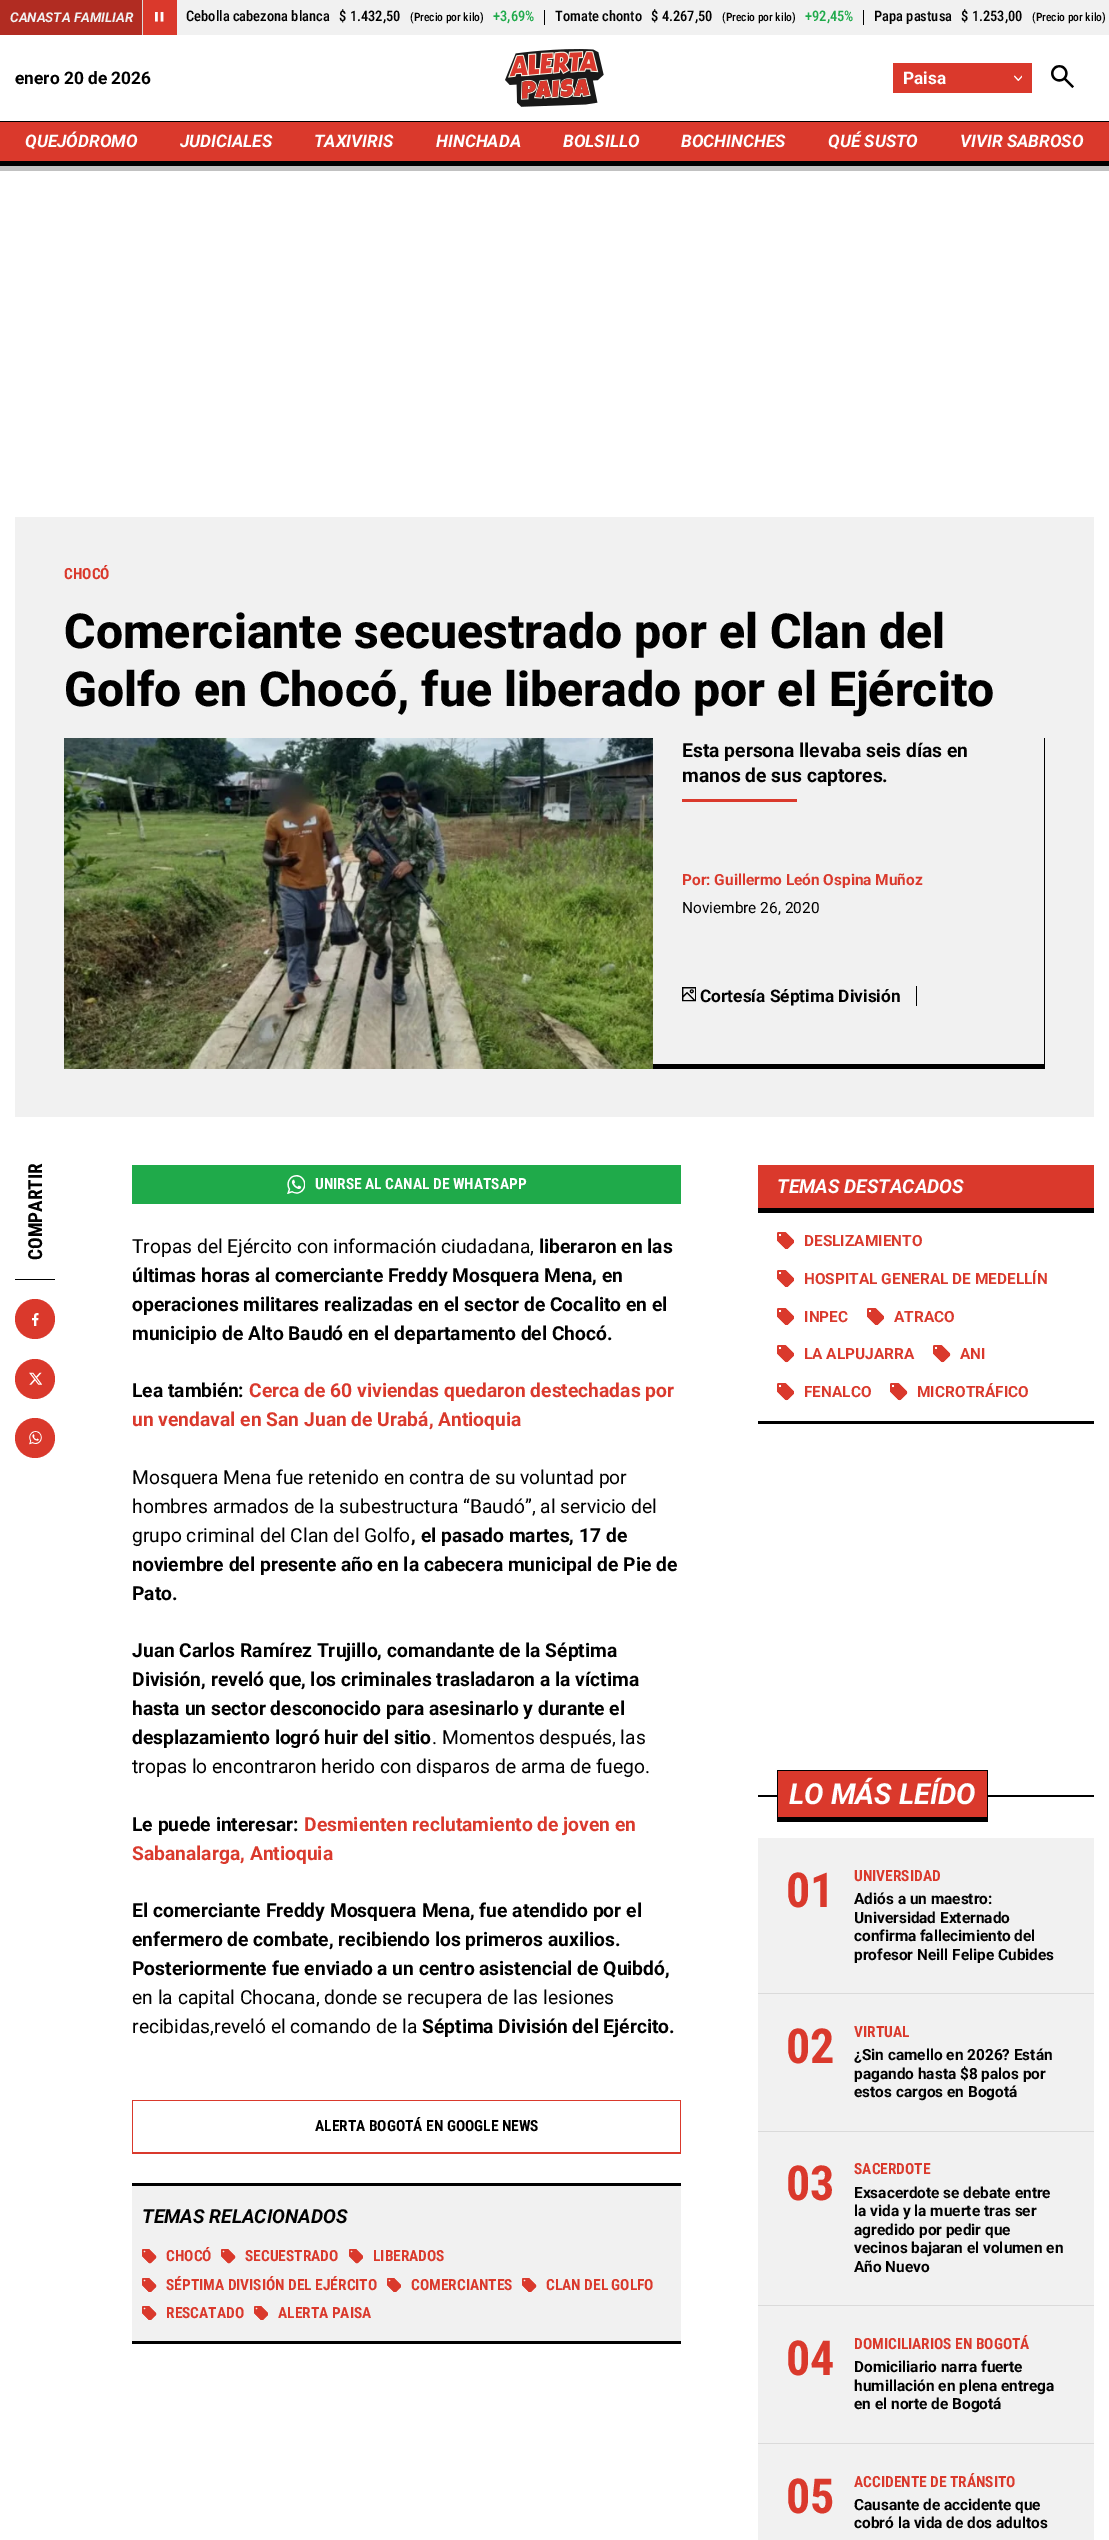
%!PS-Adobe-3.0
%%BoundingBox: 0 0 1109 2540
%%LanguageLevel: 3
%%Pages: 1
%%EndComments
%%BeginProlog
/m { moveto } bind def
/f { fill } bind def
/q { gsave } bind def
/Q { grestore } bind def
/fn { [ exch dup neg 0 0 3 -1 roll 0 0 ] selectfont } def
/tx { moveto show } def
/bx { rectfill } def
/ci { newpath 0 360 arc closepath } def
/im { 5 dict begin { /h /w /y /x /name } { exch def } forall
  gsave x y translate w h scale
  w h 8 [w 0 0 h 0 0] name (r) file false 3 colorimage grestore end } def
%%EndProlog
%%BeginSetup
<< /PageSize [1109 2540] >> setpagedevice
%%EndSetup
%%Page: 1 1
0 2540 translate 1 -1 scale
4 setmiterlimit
1 setgray
0 0 1109 2540 bx
0.945 setgray
177 0 932 35 bx
0.694 0.173 0.133 setrgbcolor
0 0 142 35 bx
/Roboto-BoldItalic 13.5 fn
0.945 setgray
(CANASTA FAMILIAR) 10 22 tx
0.855 0.224 0.173 setrgbcolor
143 0 34 35 bx
0.855 setgray
142 0 1 35 bx
(image0.raw) 155 12 9 10 im
0 setgray
544 10 1 15 bx
/RobotoCondensed-Medium 14.5 fn
(Cebolla cabezona blanca) 186 21 tx
($ 1.432,50) 339 21 tx
/RobotoCondensed-Medium 11.5 fn
(\(Precio por kilo\)) 410 21 tx
/RobotoCondensed-Medium 14.5 fn
0.122 0.667 0.29 setrgbcolor
(+3,69%) 493 21 tx
0 setgray
863 10 1 15 bx
(Tomate chonto) 555 21 tx
($ 4.267,50) 651 21 tx
/RobotoCondensed-Medium 11.5 fn
(\(Precio por kilo\)) 722 21 tx
/RobotoCondensed-Medium 14.5 fn
0.122 0.667 0.29 setrgbcolor
(+92,45%) 805 21 tx
0 setgray
(Papa pastusa) 874 21 tx
($ 1.253,00) 961 21 tx
/RobotoCondensed-Medium 11.5 fn
(\(Precio por kilo\)) 1032 21 tx
/Roboto-Bold 17.3 fn
(enero 20 de 2026) 15 84 tx
(image1.raw) 505 49 99 58 im
0.855 0.224 0.173 setrgbcolor
893 63 139 30 bx
1 setgray
(Paisa) 903 84 tx
(image2.raw) 1014 75 8 6 im
(image3.raw) 1051 65 23 23 im
0.855 0.224 0.173 setrgbcolor
0 122 1109 39 bx
0 setgray
0 121 1109 1 bx
0 161 1109 5 bx
/Roboto-BoldItalic 17.3 fn
1 setgray
(QUEJÓDROMO) 25 147 tx
(JUDICIALES) 180 147 tx
(TAXIVIRIS) 314 147 tx
(HINCHADA) 436 147 tx
(BOLSILLO) 563 147 tx
(BOCHINCHES) 681 147 tx
(QUÉ SUSTO) 828 147 tx
(VIVIR SABROSO) 960 147 tx
0.757 setgray
0 166 1109 5 bx
0.945 setgray
15 517 1079 600 bx
/RobotoCondensed-Bold 15.4 fn
0.855 0.224 0.173 setrgbcolor
(CHOCÓ) 64 579 tx
/Roboto-ExtraBold 48.2 fn
0 setgray
(Comerciante secuestrado por el Clan del) 64 648 tx
(Golfo en Chocó, fue liberado por el Ejército) 64 706 tx
(image4.raw) 64 738 589 331 im
1044 738 1 331 bx
653 1064 392 5 bx
/Roboto-Bold 19.25 fn
(Esta persona llevaba seis días en) 682 757 tx
(manos de sus captores.) 682 782 tx
0.855 0.224 0.173 setrgbcolor
682 799 115 3 bx
/Roboto-Bold 15.4 fn
(Por: Guillermo León Ospina Muñoz) 682 885 tx
/Roboto-Regular 15.4 fn
0 setgray
(Noviembre 26, 2020) 682 913 tx
916 986 1 20 bx
(image5.raw) 682 987 14 15 im
/Roboto-Bold 17.3 fn
(Cortesía Séptima División) 700 1002 tx
15 1279 40 1 bx
/RobotoCondensed-Bold 19.25 fn
q 42 1260 translate -90 rotate 0 0 m (COMPARTIR) show Q
0.855 0.224 0.173 setrgbcolor
35 1319 20 ci f
(image6.raw) 32 1313 7 13 im
35 1379 20 ci f
(image7.raw) 29 1372 13 13 im
35 1438 20 ci f
(image8.raw) 29 1431 13 14 im
0.122 0.667 0.29 setrgbcolor
132 1165 549 39 bx
(image9.raw) 287 1175 18 19 im
/RobotoCondensed-Bold 15.4 fn
1 setgray
(UNIRSE AL CANAL DE WHATSAPP) 315 1189 tx
/Roboto-Regular 19.25 fn
0 setgray
(Tropas del Ejército con información ciudadana,) 132 1253 tx
/Roboto-Bold 19.25 fn
(liberaron en las) 539 1253 tx
(últimas horas al comerciante Freddy Mosquera Mena, en) 132 1282 tx
(operaciones militares realizadas en el sector de Cocalito en el) 132 1311 tx
(municipio de Alto Baudó en el departamento del Chocó.) 132 1340 tx
(Lea también:) 132 1397 tx
0.855 0.224 0.173 setrgbcolor
(Cerca de 60 viviendas quedaron destechadas por) 249 1397 tx
(un vendaval en San Juan de Urabá, Antioquia) 132 1426 tx
/Roboto-Regular 19.25 fn
0 setgray
(Mosquera Mena fue retenido en contra de su voluntad por) 132 1484 tx
(hombres armados de la subestructura “Baudó”, al servicio del) 132 1513 tx
(grupo criminal del Clan del Golfo) 132 1542 tx
/Roboto-Bold 19.25 fn
(, el pasado martes, 17 de) 411 1542 tx
(noviembre del presente año en la cabecera municipal de Pie de) 132 1571 tx
(Pato.) 132 1600 tx
(Juan Carlos Ramírez Trujillo, comandante de la Séptima) 132 1657 tx
(División, reveló que, los criminales trasladaron a la víctima) 132 1686 tx
(hasta un sector desconocido para asesinarlo y durante el) 132 1715 tx
(desplazamiento logró huir del sitio) 132 1744 tx
/Roboto-Regular 19.25 fn
(. Momentos después, las) 432 1744 tx
(tropas lo encontraron herido con disparos de arma de fuego.) 132 1773 tx
/Roboto-Bold 19.25 fn
(Le puede interesar:) 132 1831 tx
0.855 0.224 0.173 setrgbcolor
(Desmienten reclutamiento de joven en) 304 1831 tx
(Sabanalarga, Antioquia) 132 1860 tx
0 setgray
(El comerciante Freddy Mosquera Mena, fue atendido por el) 132 1917 tx
(enfermero de combate, recibiendo los primeros auxilios.) 132 1946 tx
(Posteriormente fue enviado a un centro asistencial de Quibdó,) 132 1975 tx
/Roboto-Regular 19.25 fn
(en la capital Chocana, donde se recupera de las lesiones) 132 2004 tx
(recibidas,reveló el comando de la) 132 2033 tx
/Roboto-Bold 19.25 fn
(Séptima División del Ejército.) 422 2033 tx
0.855 0.224 0.173 setrgbcolor
132 2100 549 1 bx
680 2100 1 54 bx
132 2152 549 2 bx
132 2100 1 54 bx
/RobotoCondensed-Bold 15.4 fn
0 setgray
(ALERTA BOGOTÁ EN GOOGLE NEWS) 315 2131 tx
0.945 setgray
132 2186 549 155 bx
0 setgray
132 2183 549 3 bx
132 2341 549 3 bx
/Roboto-BoldItalic 19.25 fn
(TEMAS RELACIONADOS) 142 2223 tx
(image10.raw) 142 2249 15 15 im
/RobotoCondensed-Bold 15.4 fn
0.855 0.224 0.173 setrgbcolor
(CHOCÓ) 166 2261 tx
(image10.raw) 221 2249 15 15 im
(SECUESTRADO) 245 2261 tx
(image11.raw) 349 2249 14 15 im
(LIBERADOS) 373 2261 tx
(image12.raw) 142 2278 15 14 im
(SÉPTIMA DIVISIÓN DEL EJÉRCITO) 166 2290 tx
(image13.raw) 387 2278 14 14 im
(COMERCIANTES) 411 2290 tx
(image12.raw) 522 2278 15 14 im
(CLAN DEL GOLFO) 546 2290 tx
(image12.raw) 142 2306 15 14 im
(RESCATADO) 166 2318 tx
(image14.raw) 254 2306 14 14 im
(ALERTA PAISA) 278 2318 tx
0 setgray
758 1421 336 3 bx
0.855 0.224 0.173 setrgbcolor
758 1165 336 43 bx
0 setgray
758 1208 336 5 bx
/Roboto-BoldItalic 19.25 fn
1 setgray
(TEMAS DESTACADOS) 777 1193 tx
(image15.raw) 777 1232 17 17 im
/Roboto-Bold 15.4 fn
0.855 0.224 0.173 setrgbcolor
(DESLIZAMIENTO) 804 1246 tx
(image16.raw) 777 1270 17 17 im
(HOSPITAL GENERAL DE MEDELLÍN) 804 1284 tx
(image16.raw) 777 1308 17 17 im
(INPEC) 804 1322 tx
(image16.raw) 867 1308 17 17 im
(ATRACO) 894 1322 tx
(image17.raw) 777 1345 17 18 im
(LA ALPUJARRA) 804 1359 tx
(image18.raw) 933 1345 18 18 im
(ANI) 960 1359 tx
(image17.raw) 777 1383 17 18 im
(FENALCO) 804 1397 tx
(image18.raw) 890 1383 18 18 im
(MICROTRÁFICO) 917 1397 tx
0 setgray
758 1795 336 2 bx
0.855 0.224 0.173 setrgbcolor
778 1771 209 46 bx
0 setgray
777 1770 211 1 bx
987 1770 1 52 bx
777 1817 211 5 bx
777 1770 1 52 bx
/Roboto-BoldItalic 29 fn
1 setgray
(LO MÁS LEÍDO) 789 1804 tx
0.945 setgray
758 1838 336 155 bx
0.855 setgray
758 1993 336 1 bx
/RobotoCondensed-Bold 48.2 fn
0.855 0.224 0.173 setrgbcolor
(01) 786 1907 tx
/RobotoCondensed-Bold 15.4 fn
(UNIVERSIDAD) 854 1881 tx
/Roboto-Bold 15.4 fn
0 setgray
(Adiós a un maestro:) 854 1904 tx
(Universidad Externado) 854 1923 tx
(confirma fallecimiento del) 854 1941 tx
(profesor Neill Felipe Cubides) 854 1960 tx
0.945 setgray
758 1994 336 137 bx
0.855 setgray
758 2131 336 1 bx
/RobotoCondensed-Bold 48.2 fn
0.855 0.224 0.173 setrgbcolor
(02) 786 2063 tx
/RobotoCondensed-Bold 15.4 fn
(VIRTUAL) 854 2037 tx
/Roboto-Bold 15.4 fn
0 setgray
(¿Sin camello en 2026? Están) 854 2060 tx
(pagando hasta $8 palos por) 854 2079 tx
(estos cargos en Bogotá) 854 2097 tx
0.945 setgray
758 2132 336 173 bx
0.855 setgray
758 2305 336 1 bx
/RobotoCondensed-Bold 48.2 fn
0.855 0.224 0.173 setrgbcolor
(03) 786 2200 tx
/RobotoCondensed-Bold 15.4 fn
(SACERDOTE) 854 2174 tx
/Roboto-Bold 15.4 fn
0 setgray
(Exsacerdote se debate entre) 854 2198 tx
(la vida y la muerte tras ser) 854 2216 tx
(agredido por pedir que) 854 2235 tx
(vecinos bajaran el volumen en) 854 2253 tx
(Año Nuevo) 854 2272 tx
0.945 setgray
758 2306 336 137 bx
0.855 setgray
758 2443 336 1 bx
/RobotoCondensed-Bold 48.2 fn
0.855 0.224 0.173 setrgbcolor
(04) 786 2375 tx
/RobotoCondensed-Bold 15.4 fn
(DOMICILIARIOS EN BOGOTÁ) 854 2349 tx
/Roboto-Bold 15.4 fn
0 setgray
(Domiciliario narra fuerte) 854 2372 tx
(humillación en plena entrega) 854 2391 tx
(en el norte de Bogotá) 854 2409 tx
0.945 setgray
758 2444 336 96 bx
/RobotoCondensed-Bold 48.2 fn
0.855 0.224 0.173 setrgbcolor
(05) 786 2513 tx
/RobotoCondensed-Bold 15.4 fn
(ACCIDENTE DE TRÁNSITO) 854 2487 tx
/Roboto-Bold 15.4 fn
0 setgray
(Causante de accidente que) 854 2510 tx
(cobró la vida de dos adultos) 854 2528 tx
showpage
%%EOF
